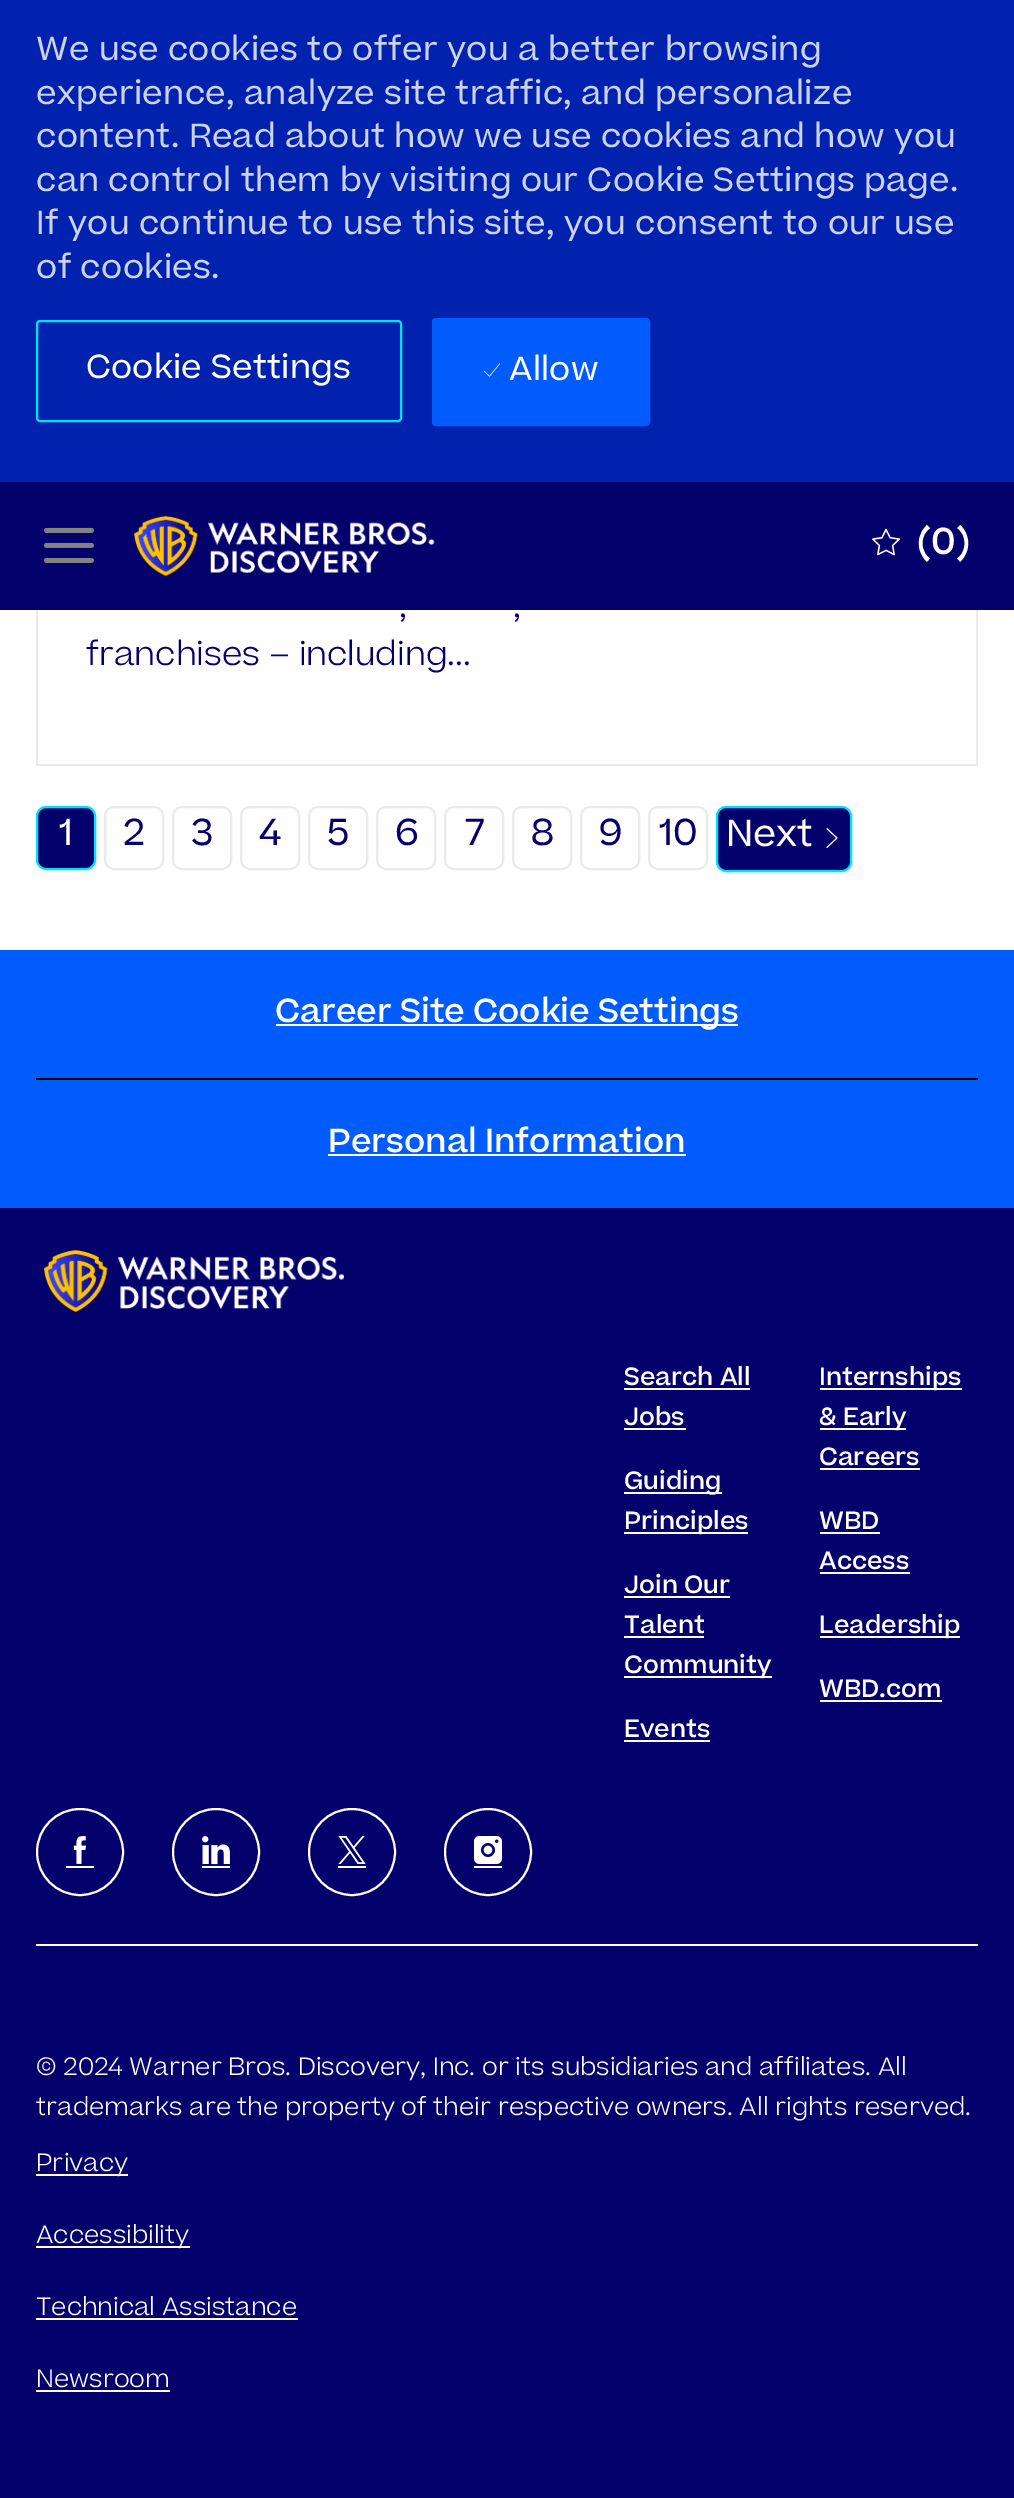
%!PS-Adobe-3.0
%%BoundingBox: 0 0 1014 2498
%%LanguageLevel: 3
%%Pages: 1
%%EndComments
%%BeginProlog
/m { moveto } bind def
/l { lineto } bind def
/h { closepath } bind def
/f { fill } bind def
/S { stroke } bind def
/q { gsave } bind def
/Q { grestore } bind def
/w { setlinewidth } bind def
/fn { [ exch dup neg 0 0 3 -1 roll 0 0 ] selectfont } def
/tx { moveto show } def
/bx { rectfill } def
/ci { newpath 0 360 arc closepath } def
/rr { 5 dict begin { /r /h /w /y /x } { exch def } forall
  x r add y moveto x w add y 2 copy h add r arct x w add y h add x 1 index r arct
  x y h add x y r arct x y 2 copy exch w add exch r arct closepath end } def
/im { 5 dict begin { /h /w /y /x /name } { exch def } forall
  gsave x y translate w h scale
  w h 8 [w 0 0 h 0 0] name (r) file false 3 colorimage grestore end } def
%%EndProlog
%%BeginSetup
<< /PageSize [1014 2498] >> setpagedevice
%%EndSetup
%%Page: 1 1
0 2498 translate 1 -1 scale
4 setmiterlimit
1 setgray
0 0 1014 2498 bx
0.918 setgray
978 160 m 978 766 l 976 764 l 976 162 l h f
36 764 942 2 bx
36 766 m 36 160 l 38 162 l 38 764 l h f
0 0.133 0.686 setrgbcolor
0 0 1014 482 bx
/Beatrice-Regular 32 fn
0.8 0.827 0.937 setrgbcolor
36 60 m 0.4 0 (We use cookies to offer you a better browsing) ashow
36 104 m 0.4 0 (experience, analyze site traffic, and personalize) ashow
36 147 m 0.4 0 (content. Read about how we use cookies and how you) ashow
36 191 m 0.4 0 (can control them by visiting our Cookie Settings page.) ashow
36 234 m 0.4 0 (If you continue to use this site, you consent to our use) ashow
36 278 m 0.4 0 (of cookies.) ashow
0 0.878 1 setrgbcolor
2 w
37 321 364 100 3 rr S
1 setgray
86 378 m 0.25 0 (Cookie Settings) ashow
0.004 0.361 0.996 setrgbcolor
434 320 214 104 2 rr q f Q
4 w
S
(image0.raw) 484 363 16 14 im
1 setgray
509 380 m 0.25 0 (Allow) ashow
0.016 0 0.424 setrgbcolor
0 482 1014 128 bx
(image1.raw) 44 527 50 36 im
(image2.raw) 134 515 301 62 im
(image3.raw) 872 528 28 28 im
/Beatrice-Medium 36 fn
1 setgray
(\(0\)) 917 554 tx
/Beatrice-Light 32 fn
0.016 0 0.424 setrgbcolor
(,) 399 617 tx
(,) 513 617 tx
(franchises – including...) 86 665 tx
37 807 58 62 9 rr q f Q
0 0.878 1 setrgbcolor
2 w
S
/Beatrice-Regular 36 fn
1 setgray
(1) 59 845 tx
0.918 setgray
105 807 58 62 9 rr S
0.016 0 0.424 setrgbcolor
(2) 123 845 tx
0.918 setgray
173 807 58 62 9 rr S
0.016 0 0.424 setrgbcolor
(3) 191 845 tx
0.918 setgray
241 807 58 62 9 rr S
0.016 0 0.424 setrgbcolor
(4) 259 845 tx
0.918 setgray
309 807 58 62 9 rr S
0.016 0 0.424 setrgbcolor
(5) 327 845 tx
0.918 setgray
377 807 58 62 9 rr S
0.016 0 0.424 setrgbcolor
(6) 395 845 tx
0.918 setgray
445 807 58 62 9 rr S
0.016 0 0.424 setrgbcolor
(7) 465 845 tx
0.918 setgray
513 807 58 62 9 rr S
0.016 0 0.424 setrgbcolor
(8) 531 845 tx
0.918 setgray
581 807 58 62 9 rr S
0.016 0 0.424 setrgbcolor
(9) 599 845 tx
0.918 setgray
649 807 58 62 9 rr S
0.016 0 0.424 setrgbcolor
(10) 659 845 tx
717 807 134 64 9 rr q f Q
0 0.878 1 setrgbcolor
S
1 setgray
(Next) 726 846 tx
(image4.raw) 826 828 12 20 im
0.016 0 0.424 setrgbcolor
0 1208 1014 1290 bx
0.004 0.361 0.996 setrgbcolor
0 950 1014 258 bx
1 setgray
276 1024 462 2 bx
/Beatrice-Medium 32 fn
(Career Site Cookie Settings) 275 1022 tx
0 setgray
36 1078 942 2 bx
1 setgray
(Personal Information) 328 1152 tx
328 1154 358 2 bx
(image5.raw) 44 1250 300 62 im
/Beatrice-Medium 24 fn
(Search All) 624 1385 tx
624 1388 126 2 bx
(Jobs) 624 1425 tx
624 1428 62 2 bx
624 1492 98 2 bx
(Guiding) 624 1489 tx
624 1532 124 2 bx
(Principles) 624 1529 tx
(Join Our) 624 1593 tx
624 1596 106 2 bx
(Talent) 624 1633 tx
624 1636 80 2 bx
624 1676 148 2 bx
(Community) 624 1673 tx
(Events) 624 1737 tx
624 1740 86 2 bx
820 1388 142 2 bx
(Internships) 819 1385 tx
820 1428 86 2 bx
(& Early) 819 1425 tx
(Careers) 819 1465 tx
820 1468 100 2 bx
(WBD) 819 1529 tx
820 1532 60 2 bx
(Access) 819 1569 tx
820 1572 90 2 bx
820 1636 140 2 bx
(Leadership) 819 1633 tx
(WBD.com) 819 1697 tx
820 1700 122 2 bx
80 1852 43 ci S
(image6.raw) 73 1836 14 28 im
66 1866 28 2 bx
216 1852 43 ci S
(image7.raw) 202 1836 28 29 im
202 1866 28 2 bx
352 1852 43 ci S
(image8.raw) 338 1836 28 28 im
338 1866 28 2 bx
488 1852 43 ci S
(image9.raw) 474 1836 28 28 im
474 1866 28 2 bx
36 1944 942 2 bx
/Beatrice-Light 24 fn
(© 2024 Warner Bros. Discovery, Inc. or its subsidiaries and affiliates. All) 36 2075 tx
(trademarks are the property of their respective owners. All rights reserved.) 36 2115 tx
36 2174 92 2 bx
(Privacy) 36 2171 tx
36 2246 154 2 bx
(Accessibility) 36 2243 tx
(Technical Assistance) 36 2315 tx
36 2318 262 2 bx
(Newsroom) 36 2387 tx
36 2390 134 2 bx
showpage
%%EOF
